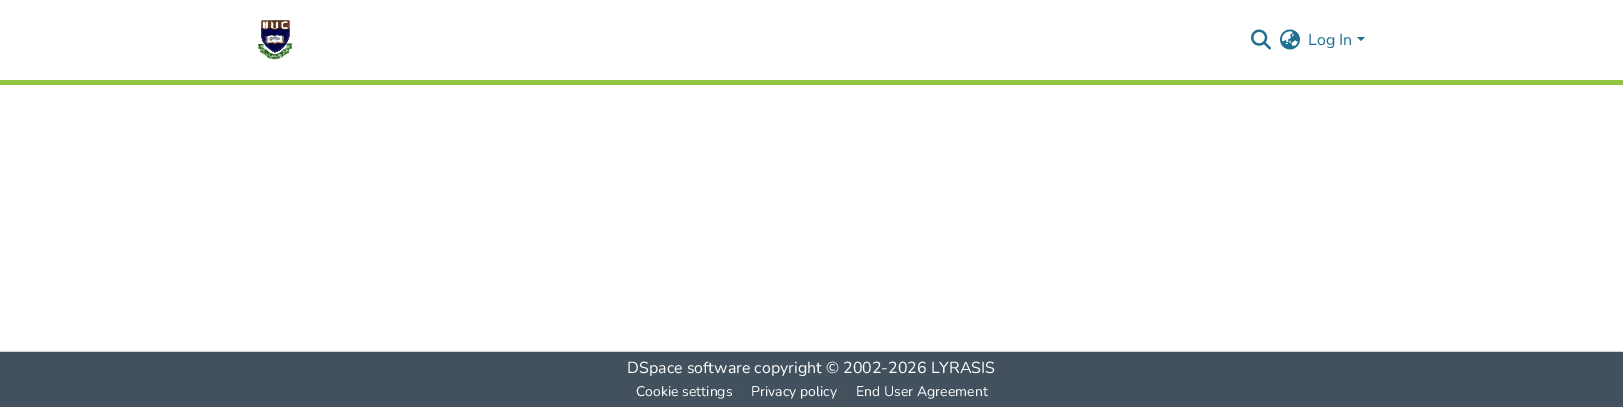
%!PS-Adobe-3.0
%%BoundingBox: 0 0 1623 407
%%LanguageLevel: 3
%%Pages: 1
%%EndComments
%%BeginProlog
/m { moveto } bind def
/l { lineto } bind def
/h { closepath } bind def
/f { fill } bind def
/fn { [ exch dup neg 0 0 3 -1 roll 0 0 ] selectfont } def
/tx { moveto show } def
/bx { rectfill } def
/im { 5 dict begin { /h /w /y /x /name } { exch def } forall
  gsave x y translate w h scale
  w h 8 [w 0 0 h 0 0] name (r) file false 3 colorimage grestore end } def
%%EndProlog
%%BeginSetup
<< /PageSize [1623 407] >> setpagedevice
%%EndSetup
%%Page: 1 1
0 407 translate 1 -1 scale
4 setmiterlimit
1 setgray
0 0 1623 407 bx
0.573 0.776 0.259 setrgbcolor
0 80 1623 5 bx
(image0.raw) 258 20 35 40 im
(image1.raw) 1251 29 20 21 im
(image2.raw) 1280 29 20 21 im
/Nunito-Regular 16 fn
0.118 0.435 0.565 setrgbcolor
(Log In) 1308 45 tx
1357 37 m 1365 37 l 1361 41 l h f
0.263 0.318 0.373 setrgbcolor
0 352 1623 55 bx
0.808 0.831 0.855 setrgbcolor
0 351 1623 1 bx
1 setgray
(DSpace software copyright © 2002-2026 LYRASIS) 627 373 tx
/Nunito-Regular 14 fn
(Cookie settings) 636 396 tx
0.286 0.314 0.341 setrgbcolor
741 380 1 23 bx
1 setgray
(Privacy policy) 751 396 tx
0.286 0.314 0.341 setrgbcolor
846 380 1 23 bx
1 setgray
(End User Agreement) 856 396 tx
showpage
%%EOF
